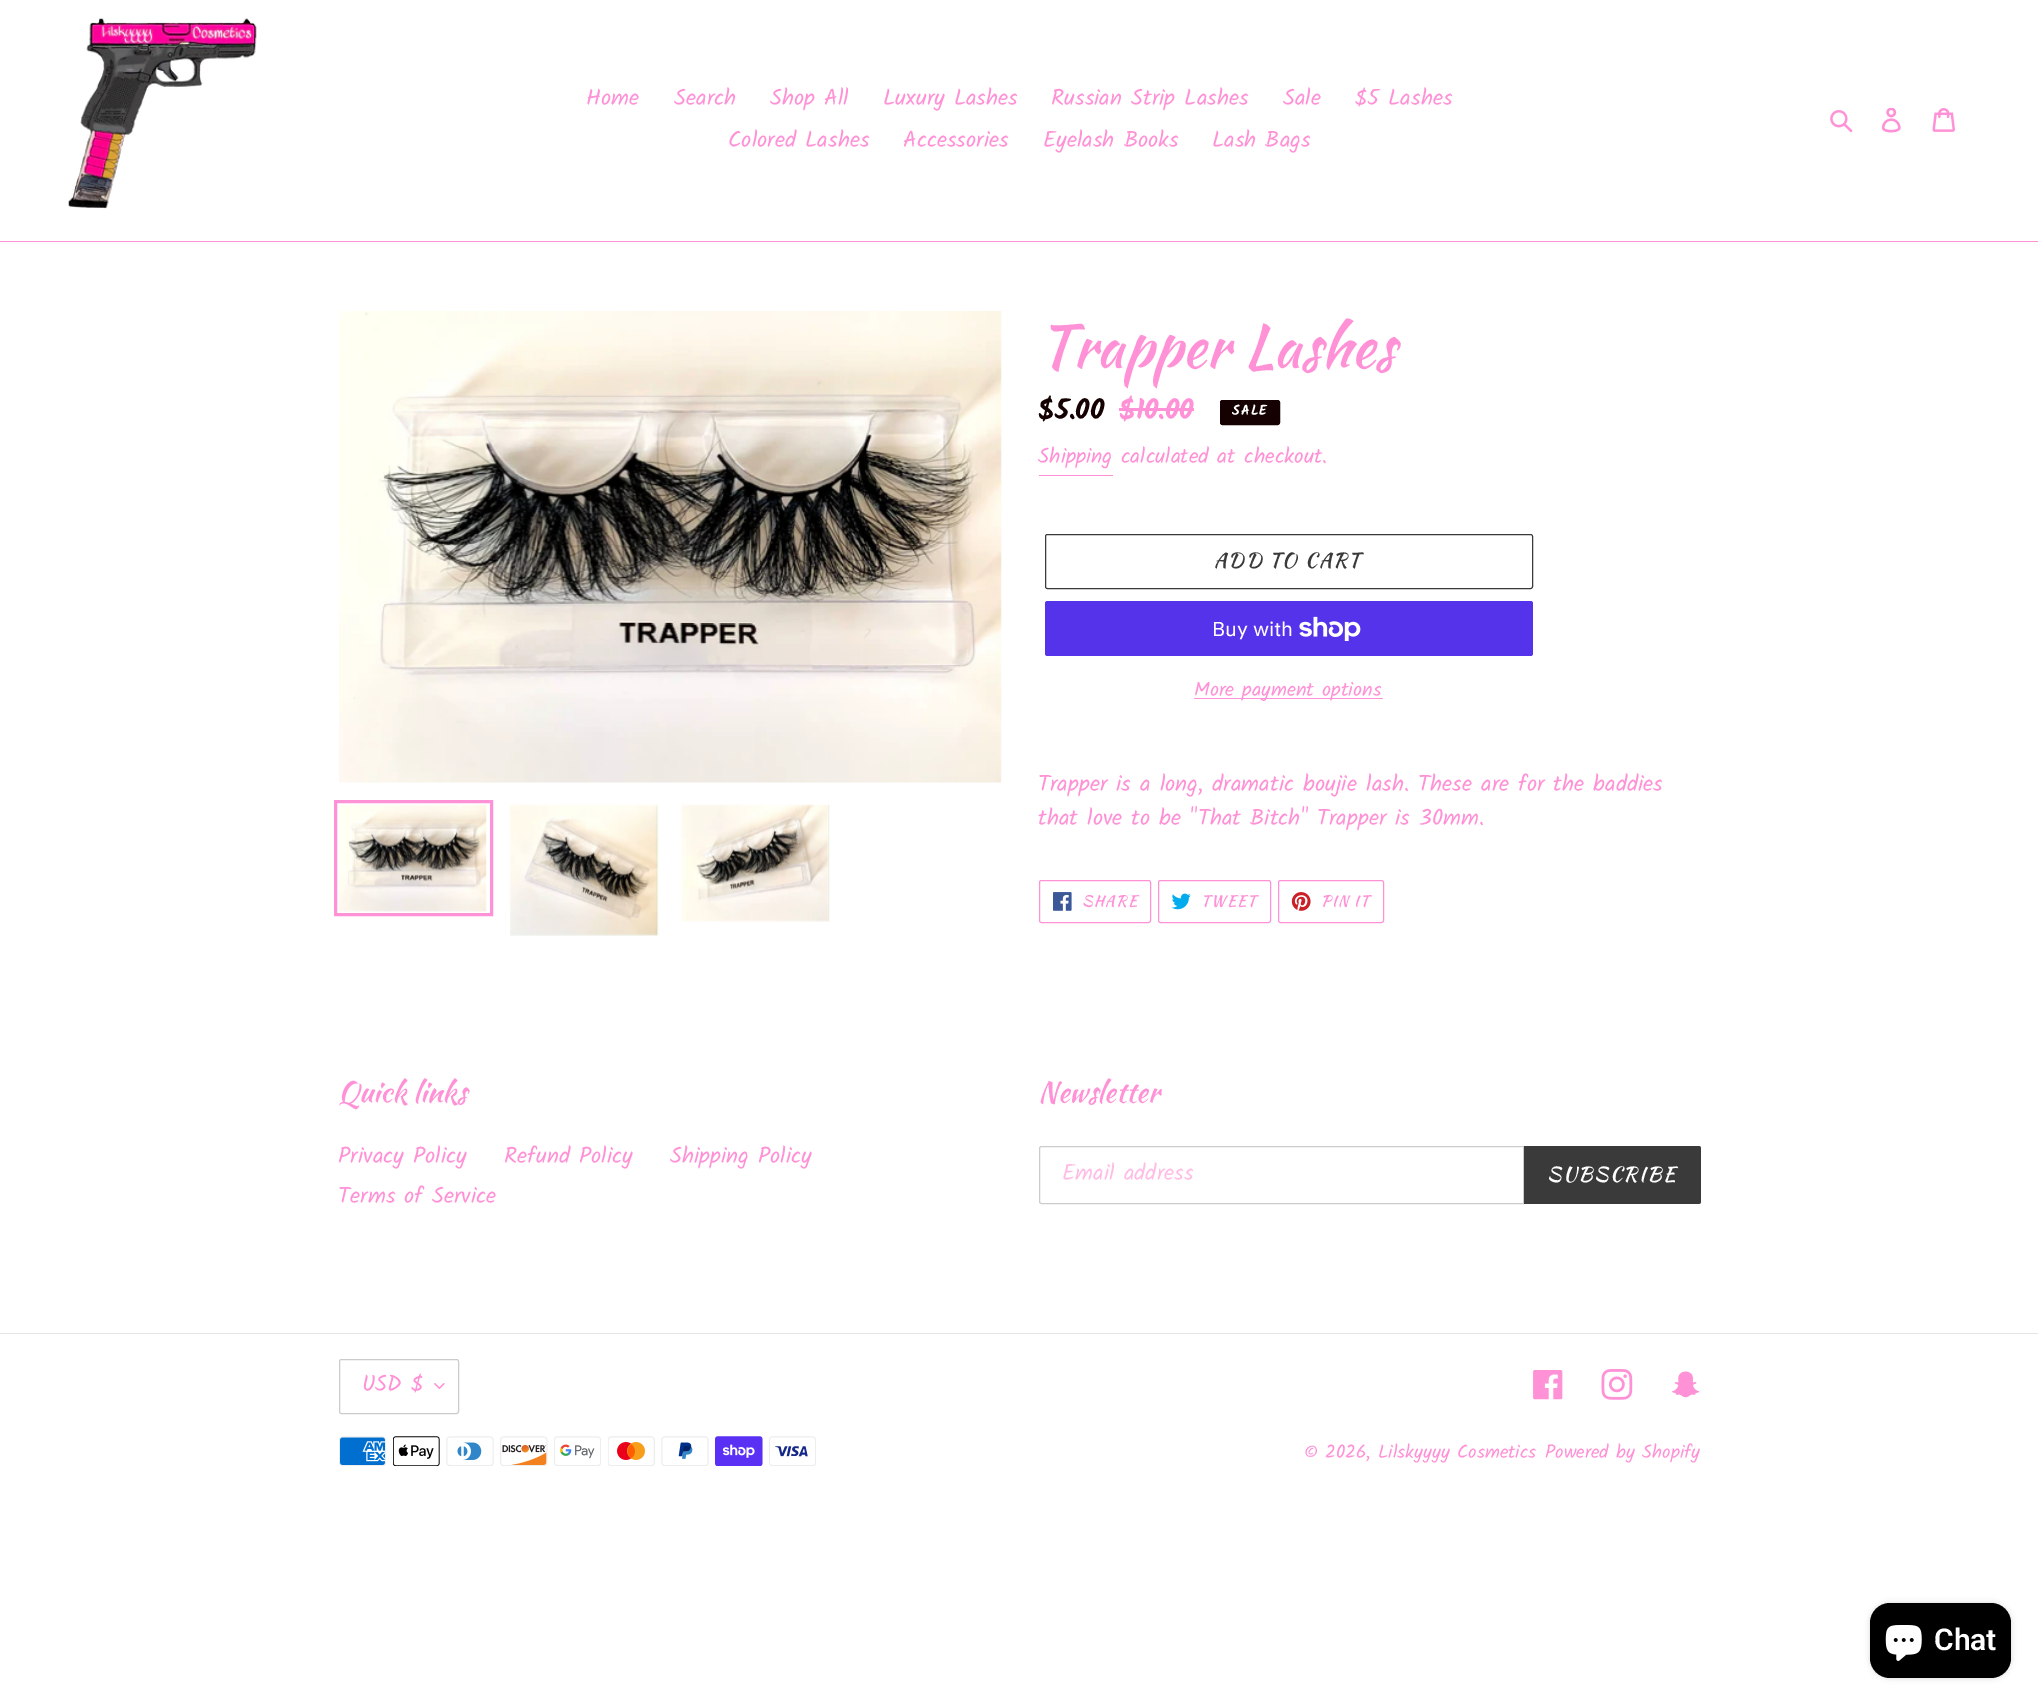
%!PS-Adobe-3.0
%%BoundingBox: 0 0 2038 1703
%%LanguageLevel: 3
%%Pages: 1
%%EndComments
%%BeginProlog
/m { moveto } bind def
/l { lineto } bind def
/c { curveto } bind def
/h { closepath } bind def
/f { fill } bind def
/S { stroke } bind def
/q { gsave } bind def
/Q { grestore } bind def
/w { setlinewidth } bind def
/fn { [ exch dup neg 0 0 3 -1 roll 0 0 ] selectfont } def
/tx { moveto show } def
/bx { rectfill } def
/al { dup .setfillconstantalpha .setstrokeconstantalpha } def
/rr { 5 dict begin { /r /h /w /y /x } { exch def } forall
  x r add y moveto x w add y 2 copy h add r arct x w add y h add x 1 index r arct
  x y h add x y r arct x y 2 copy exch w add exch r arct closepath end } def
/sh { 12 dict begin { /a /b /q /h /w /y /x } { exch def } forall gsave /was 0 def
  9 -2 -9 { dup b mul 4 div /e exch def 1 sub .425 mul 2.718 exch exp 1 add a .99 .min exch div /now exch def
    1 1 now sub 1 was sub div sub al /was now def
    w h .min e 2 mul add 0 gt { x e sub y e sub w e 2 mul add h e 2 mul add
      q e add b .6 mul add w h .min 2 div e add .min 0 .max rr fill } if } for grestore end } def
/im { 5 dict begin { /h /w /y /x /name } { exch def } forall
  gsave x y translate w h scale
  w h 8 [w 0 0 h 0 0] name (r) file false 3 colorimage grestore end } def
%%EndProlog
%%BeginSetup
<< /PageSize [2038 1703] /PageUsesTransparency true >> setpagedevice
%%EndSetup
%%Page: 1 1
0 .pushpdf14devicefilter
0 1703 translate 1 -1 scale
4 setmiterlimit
1 setgray
0 0 2038 1703 bx
1 0.569 0.839 setrgbcolor
0 241 2038 1 bx
(image0.raw) 68 18 189 191 im
/Kalam-Regular 22.5 fn
(Home) 586 105 tx
(Search) 674 105 tx
(Shop All) 770 105 tx
(Luxury Lashes) 883 105 tx
(Russian Strip Lashes) 1051 105 tx
(Sale) 1283 105 tx
($5 Lashes) 1355 105 tx
(Colored Lashes) 728 147 tx
(Accessories) 903 147 tx
(Eyelash Books) 1043 147 tx
(Lash Bags) 1212 147 tx
(image1.raw) 1830 110 23 23 im
(image2.raw) 1881 108 20 25 im
(image3.raw) 1932 108 23 24 im
(image4.raw) 339 311 663 472 im
3 w
335.5 801.5 156 113 rectstroke
(image5.raw) 338 804 149 108 im
(image6.raw) 510 804 149 132 im
(image7.raw) 681 804 149 118 im
/KaushanScript-Regular 58.75 fn
(Trapper Lashes) 1038 367 tx
/Kalam-Bold 28 fn
0.082 0.004 0.004 setrgbcolor
($5.00) 1038 419 tx
1 0.569 0.839 setrgbcolor
($10.00) 1119 419 tx
1119 408 75 3 bx
0.082 0.004 0.004 setrgbcolor
1220.5 400.5 59 24 2 rr q f Q
1 w
S
/Kalam-Bold 14 fn
1 setgray
1232 415 m 1 0 (SALE) ashow
/Kalam-Regular 21.25 fn
1 0.569 0.839 setrgbcolor
(Shipping calculated at checkout.) 1038 463 tx
1039 475 74 1 bx
0.227 setgray
1045.5 534.5 487 54 2 rr S
/KaushanScript-Regular 20 fn
1214 567 m 1.6 0 (ADD TO CART) ashow
0.329 0.2 0.922 setrgbcolor
1045 601 488 55 2.5 rr f
/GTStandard-Regular 20 fn
1 setgray
(Buy with) 1212 636 tx
(image8.raw) 1299 616 62 25 im
1 0.569 0.839 setrgbcolor
1194 698 189 1 bx
/Kalam-Regular 20 fn
(More payment options) 1194 696 tx
/Kalam-Regular 22.5 fn
(Trapper is a long, dramatic boujie lash. These are for the baddies) 1038 791 tx
(that love to be "That Bitch" Trapper is 30mm.) 1038 825 tx
1039.5 880.5 111 42 2 rr S
(image9.raw) 1053 892 19 19 im
/KaushanScript-Regular 15 fn
1082 906 m 1.25 0 (SHARE) ashow
1158.5 880.5 112 42 2 rr S
(image10.raw) 1171 893 20 17 im
1201 906 m 1.25 0 (TWEET) ashow
1278.5 880.5 105 42 2 rr S
(image11.raw) 1291 892 20 19 im
1321 906 m 1.25 0 (PIN IT) ashow
/KaushanScript-Regular 28.75 fn
(Quick links) 338 1102 tx
/Kalam-Regular 22.5 fn
(Privacy Policy) 338 1163 tx
(Refund Policy) 504 1163 tx
(Shipping Policy) 670 1163 tx
(Terms of Service) 338 1203 tx
/KaushanScript-Regular 28.75 fn
(Newsletter) 1038 1102 tx
0.8 setgray
1041.5 1146.5 m 1523.5 1146.5 l 1523.5 1203.5 l 1041.5 1203.5 l 1040.5 1203.5 1039.5 1202.5 1039.5 1201.5 c 1039.5 1148.5 l 1039.5 1147.5 1040.5 1146.5 1041.5 1146.5 c h S
/Kalam-Regular 22.5 fn
1 0.741 0.902 setrgbcolor
(Email address) 1062 1180 tx
0.227 setgray
1524 1146 m 1698.5 1146 l 1700 1146 1701 1147 1701 1148.5 c 1701 1201.5 l 1701 1203 1700 1204 1698.5 1204 c 1524 1204 l h f
/KaushanScript-Regular 20 fn
1 setgray
1547 1181 m 1.6 0 (SUBSCRIBE) ashow
0.902 setgray
0 1333 2038 1 bx
(image12.raw) 434 1383 11 6 im
0.8 setgray
339.5 1359.5 119 54 2 rr S
/Kalam-Regular 22.5 fn
1 0.569 0.839 setrgbcolor
(USD $) 362 1391 tx
(image13.raw) 1533 1370 30 30 im
(image14.raw) 1601 1369 32 31 im
(image15.raw) 1672 1371 28 27 im
(image16.raw) 339 1436 47 30 im
(image17.raw) 393 1436 47 30 im
(image18.raw) 446 1436 48 30 im
(image19.raw) 500 1436 48 30 im
(image20.raw) 554 1436 47 30 im
(image21.raw) 608 1436 47 30 im
(image22.raw) 661 1436 48 30 im
(image23.raw) 715 1436 48 30 im
(image24.raw) 769 1436 47 30 im
/Kalam-Regular 18.75 fn
(© 2026, Lilskyyyy Cosmetics) 1304 1458 tx
(Powered by Shopify) 1545 1458 tx
0 setgray
1870 1603 141 75 20 3 0.15 sh
1870 1603 141 75 20 rr f
(image25.raw) 1885 1625 37 36 im
/Roboto-SemiBold 30 fn
1 setgray
(Chat) 1934 1650 tx
.poppdf14devicefilter showpage
%%EOF
